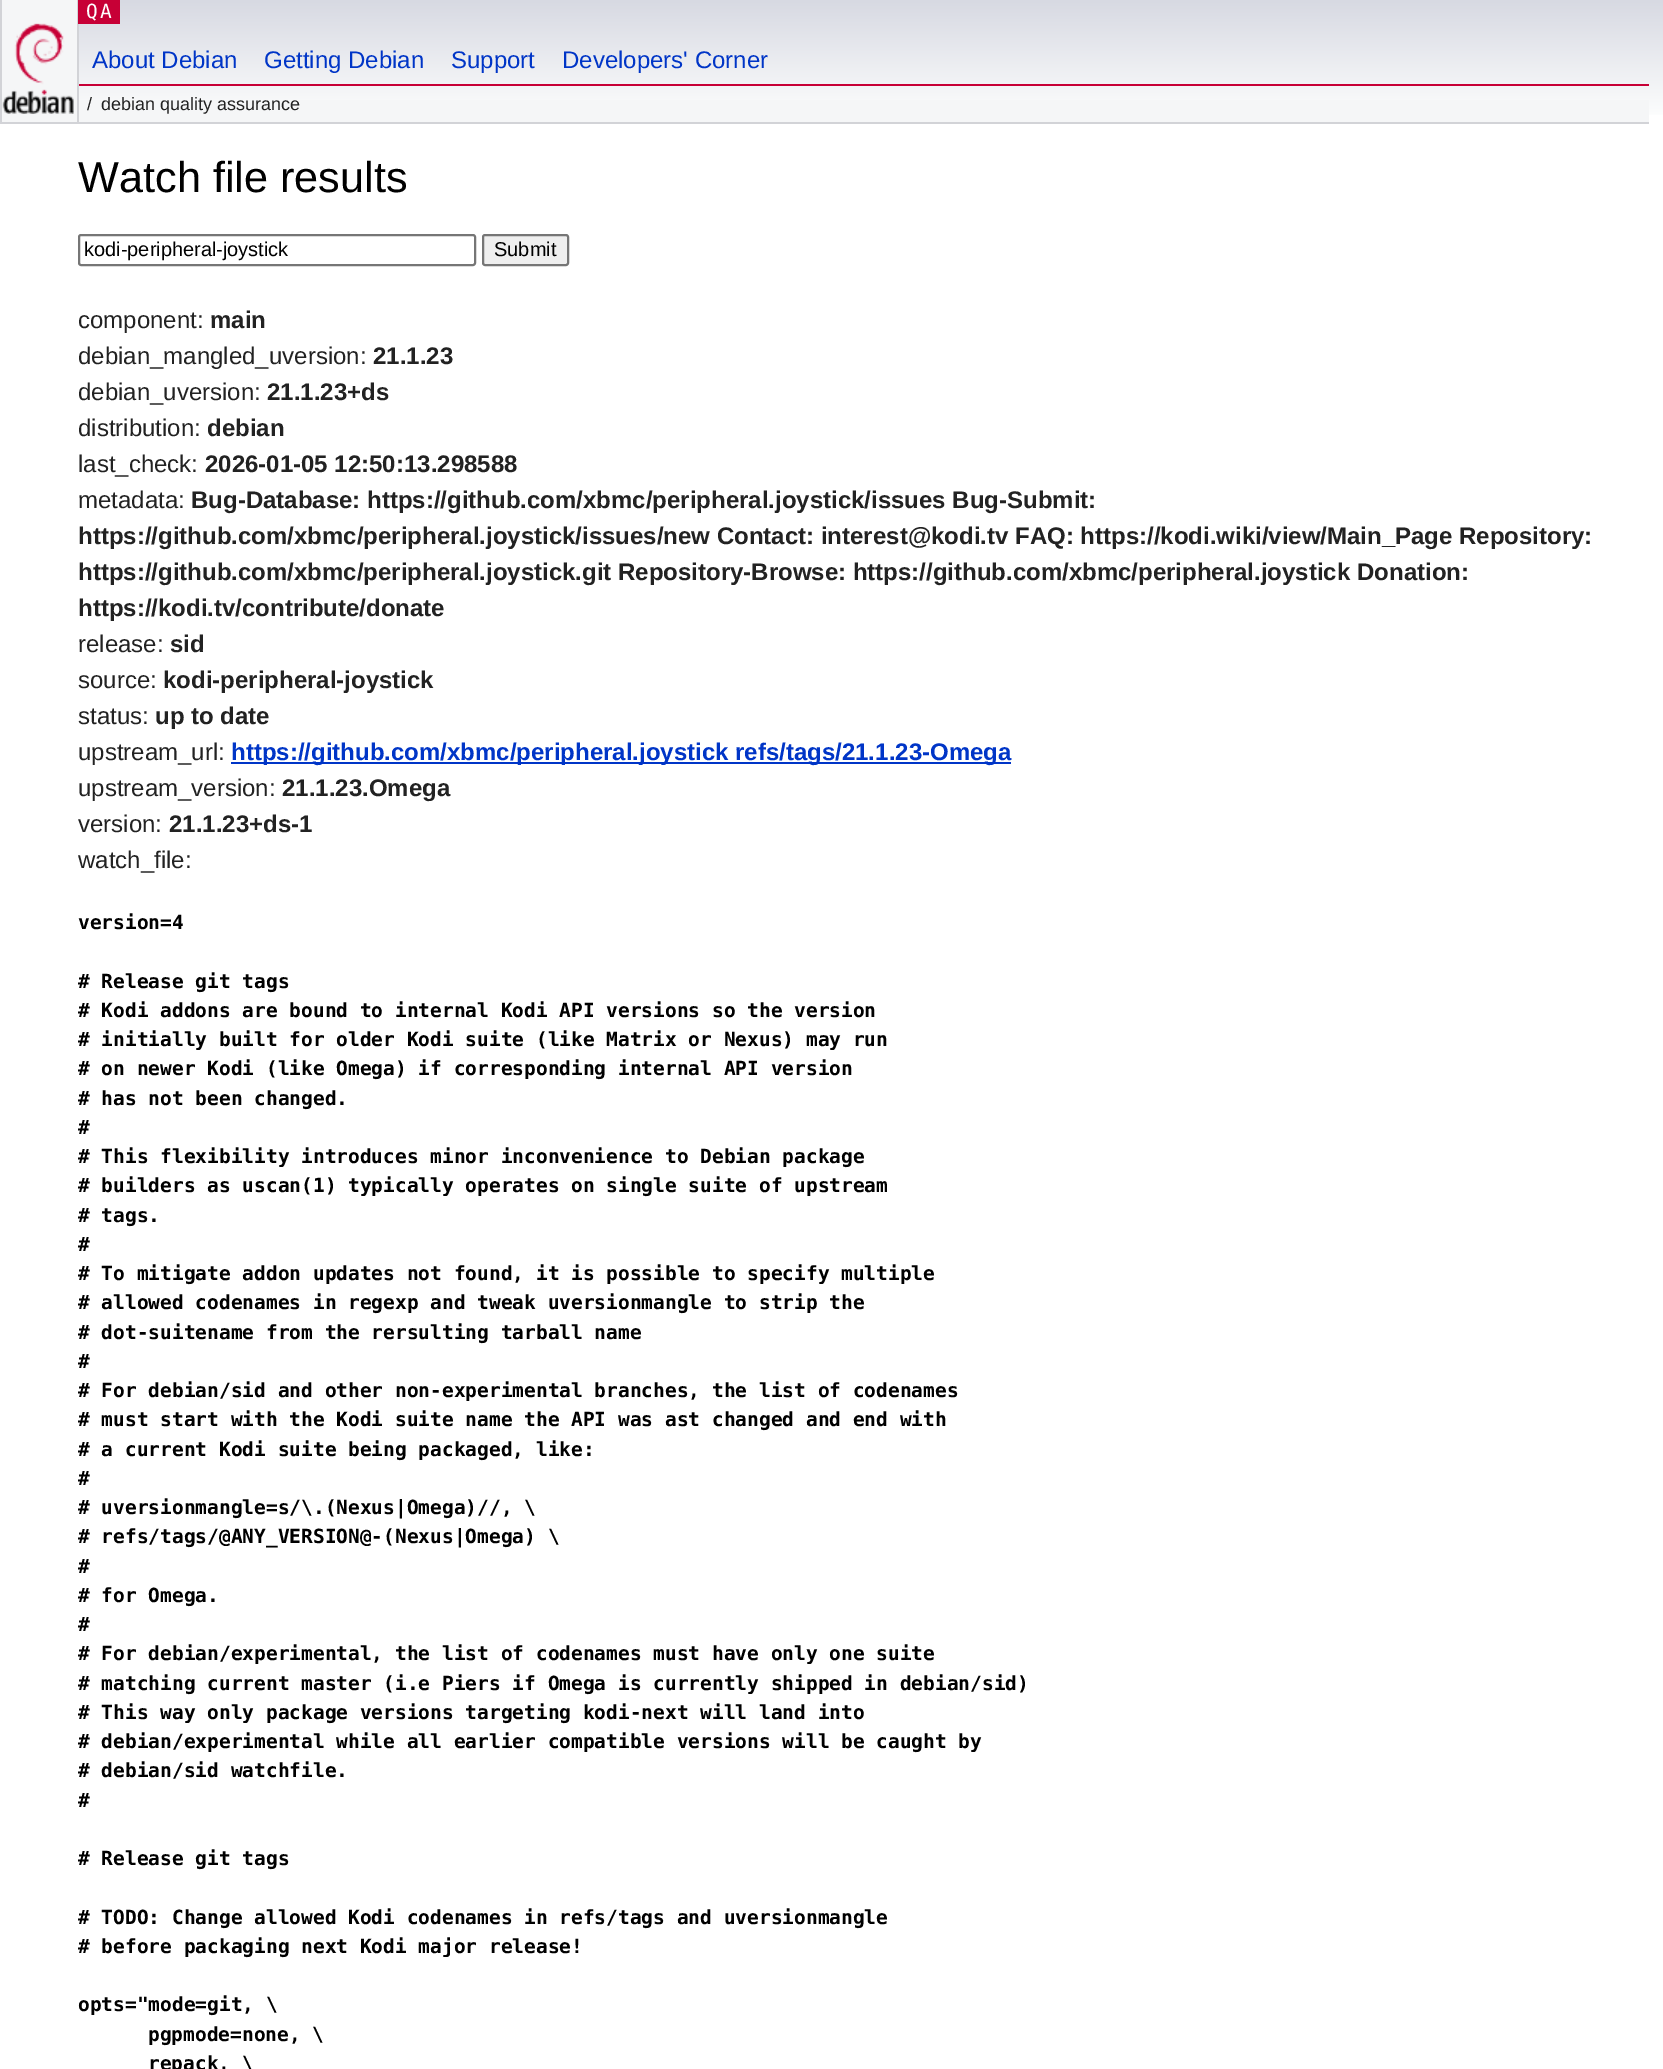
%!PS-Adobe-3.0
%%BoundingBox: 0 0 1663 2069
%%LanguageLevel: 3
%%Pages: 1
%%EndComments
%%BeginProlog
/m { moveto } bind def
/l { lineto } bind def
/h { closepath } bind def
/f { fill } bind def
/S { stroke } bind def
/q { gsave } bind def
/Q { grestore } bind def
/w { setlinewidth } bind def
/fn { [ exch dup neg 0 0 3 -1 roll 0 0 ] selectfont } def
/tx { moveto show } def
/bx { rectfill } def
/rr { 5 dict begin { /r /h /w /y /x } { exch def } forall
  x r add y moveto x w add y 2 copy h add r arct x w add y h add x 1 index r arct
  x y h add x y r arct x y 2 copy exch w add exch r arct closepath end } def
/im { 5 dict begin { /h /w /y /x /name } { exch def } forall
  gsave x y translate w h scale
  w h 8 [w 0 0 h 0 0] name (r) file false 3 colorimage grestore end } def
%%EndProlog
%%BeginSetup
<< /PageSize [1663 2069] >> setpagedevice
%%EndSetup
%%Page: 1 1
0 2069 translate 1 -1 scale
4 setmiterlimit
1 setgray
0 0 1663 2069 bx
q 79 0 m 1663 0 l 1663 115 l 79 115 l h clip newpath
<< /ShadingType 2 /ColorSpace /DeviceRGB /Coords [832 0 832 123] /Extend [true true] /Function << /FunctionType 2 /Domain [0 1] /C0 [0.843 0.851 0.886] /C1 [1 1 1] /N 1 >> >> shfill Q
0.961 0.965 0.969 setrgbcolor
2 0 75 122 bx
0.78 0 0.212 setrgbcolor
78 84 1571 2 bx
0.824 0.827 0.843 setrgbcolor
78 122 1571 2 bx
77 0 2 123 bx
0 122 78 2 bx
0 0 2 123 bx
(image0.raw) 2 23 72 91 im
0.78 0 0.212 setrgbcolor
78 0 42 24 bx
/DejaVuSansMono-Regular 19.5 fn
1 setgray
86 18 m 2 0 (QA) ashow
/LiberationSans-Regular 24 fn
0 0.208 0.78 setrgbcolor
(About Debian) 92 68 tx
(Getting Debian) 264 68 tx
(Support) 451 68 tx
(Developers' Corner) 562 68 tx
0.961 0.965 0.969 setrgbcolor
79 100 1570 22 bx
/LiberationSans-Regular 18 fn
0.133 setgray
(/) 87 110 tx
(debian quality assurance) 101 110 tx
/LiberationSans-Regular 43.25 fn
0 setgray
(Watch file results) 78 192 tx
0.463 setgray
2 w
79 235 396 30 2 rr S
/LiberationSans-Regular 20 fn
0 setgray
(kodi-peripheral-joystick) 84 256 tx
0.937 setgray
483 235 85 30 2 rr q f Q
0.463 setgray
S
0 setgray
(Submit) 494 256 tx
/LiberationSans-Regular 24 fn
0.133 setgray
(component:) 78 328 tx
/LiberationSans-Bold 24 fn
(main) 210 328 tx
/LiberationSans-Regular 24 fn
(debian_mangled_uversion:) 78 364 tx
/LiberationSans-Bold 24 fn
(21.1.23) 373 364 tx
/LiberationSans-Regular 24 fn
(debian_uversion:) 78 400 tx
/LiberationSans-Bold 24 fn
(21.1.23+ds) 267 400 tx
/LiberationSans-Regular 24 fn
(distribution:) 78 436 tx
/LiberationSans-Bold 24 fn
(debian) 207 436 tx
/LiberationSans-Regular 24 fn
(last_check:) 78 472 tx
/LiberationSans-Bold 24 fn
(2026-01-05 12:50:13.298588) 205 472 tx
/LiberationSans-Regular 24 fn
(metadata:) 78 508 tx
/LiberationSans-Bold 24 fn
(Bug-Database: https://github.com/xbmc/peripheral.joystick/issues Bug-Submit:) 191 508 tx
(https://github.com/xbmc/peripheral.joystick/issues/new Contact: interest@kodi.tv FAQ: https://kodi.wiki/view/Main_Page Repository:) 78 544 tx
(https://github.com/xbmc/peripheral.joystick.git Repository-Browse: https://github.com/xbmc/peripheral.joystick Donation:) 78 580 tx
(https://kodi.tv/contribute/donate) 78 616 tx
/LiberationSans-Regular 24 fn
(release:) 78 652 tx
/LiberationSans-Bold 24 fn
(sid) 170 652 tx
/LiberationSans-Regular 24 fn
(source:) 78 688 tx
/LiberationSans-Bold 24 fn
(kodi-peripheral-joystick) 163 688 tx
/LiberationSans-Regular 24 fn
(status:) 78 724 tx
/LiberationSans-Bold 24 fn
(up to date) 155 724 tx
/LiberationSans-Regular 24 fn
(upstream_url:) 78 760 tx
0 0.208 0.78 setrgbcolor
231 762 780 2 bx
/LiberationSans-Bold 24 fn
(https://github.com/xbmc/peripheral.joystick refs/tags/21.1.23-Omega) 231 760 tx
/LiberationSans-Regular 24 fn
0.133 setgray
(upstream_version:) 78 796 tx
/LiberationSans-Bold 24 fn
(21.1.23.Omega) 282 796 tx
/LiberationSans-Regular 24 fn
(version:) 78 832 tx
/LiberationSans-Bold 24 fn
(21.1.23+ds-1) 169 832 tx
/LiberationSans-Regular 24 fn
(watch_file:) 78 868 tx
/DejaVuSansMono-Bold 19.5 fn
0 setgray
(version=4) 78 929 tx
(# Release git tags) 78 988 tx
(# Kodi addons are bound to internal Kodi API versions so the version) 78 1017 tx
(# initially built for older Kodi suite \(like Matrix or Nexus\) may run) 78 1046 tx
(# on newer Kodi \(like Omega\) if corresponding internal API version) 78 1075 tx
(# has not been changed.) 78 1105 tx
(#) 78 1134 tx
(# This flexibility introduces minor inconvenience to Debian package) 78 1163 tx
(# builders as uscan\(1\) typically operates on single suite of upstream) 78 1192 tx
(# tags.) 78 1222 tx
(#) 78 1251 tx
(# To mitigate addon updates not found, it is possible to specify multiple) 78 1280 tx
(# allowed codenames in regexp and tweak uversionmangle to strip the) 78 1309 tx
(# dot-suitename from the rersulting tarball name) 78 1339 tx
(#) 78 1368 tx
(# For debian/sid and other non-experimental branches, the list of codenames) 78 1397 tx
(# must start with the Kodi suite name the API was ast changed and end with) 78 1426 tx
(# a current Kodi suite being packaged, like:) 78 1456 tx
(#) 78 1485 tx
(# uversionmangle=s/\\.\(Nexus|Omega\)//, \\) 78 1514 tx
(# refs/tags/@ANY_VERSION@-\(Nexus|Omega\) \\) 78 1543 tx
(#) 78 1573 tx
(# for Omega.) 78 1602 tx
(#) 78 1631 tx
(# For debian/experimental, the list of codenames must have only one suite) 78 1660 tx
(# matching current master \(i.e Piers if Omega is currently shipped in debian/sid\)) 78 1690 tx
(# This way only package versions targeting kodi-next will land into) 78 1719 tx
(# debian/experimental while all earlier compatible versions will be caught by) 78 1748 tx
(# debian/sid watchfile.) 78 1777 tx
(#) 78 1807 tx
(# Release git tags) 78 1865 tx
(# TODO: Change allowed Kodi codenames in refs/tags and uversionmangle) 78 1924 tx
(# before packaging next Kodi major release!) 78 1953 tx
(opts="mode=git, \\) 78 2011 tx
(pgpmode=none, \\) 148 2041 tx
(repack, \\) 148 2070 tx
showpage
%%EOF
